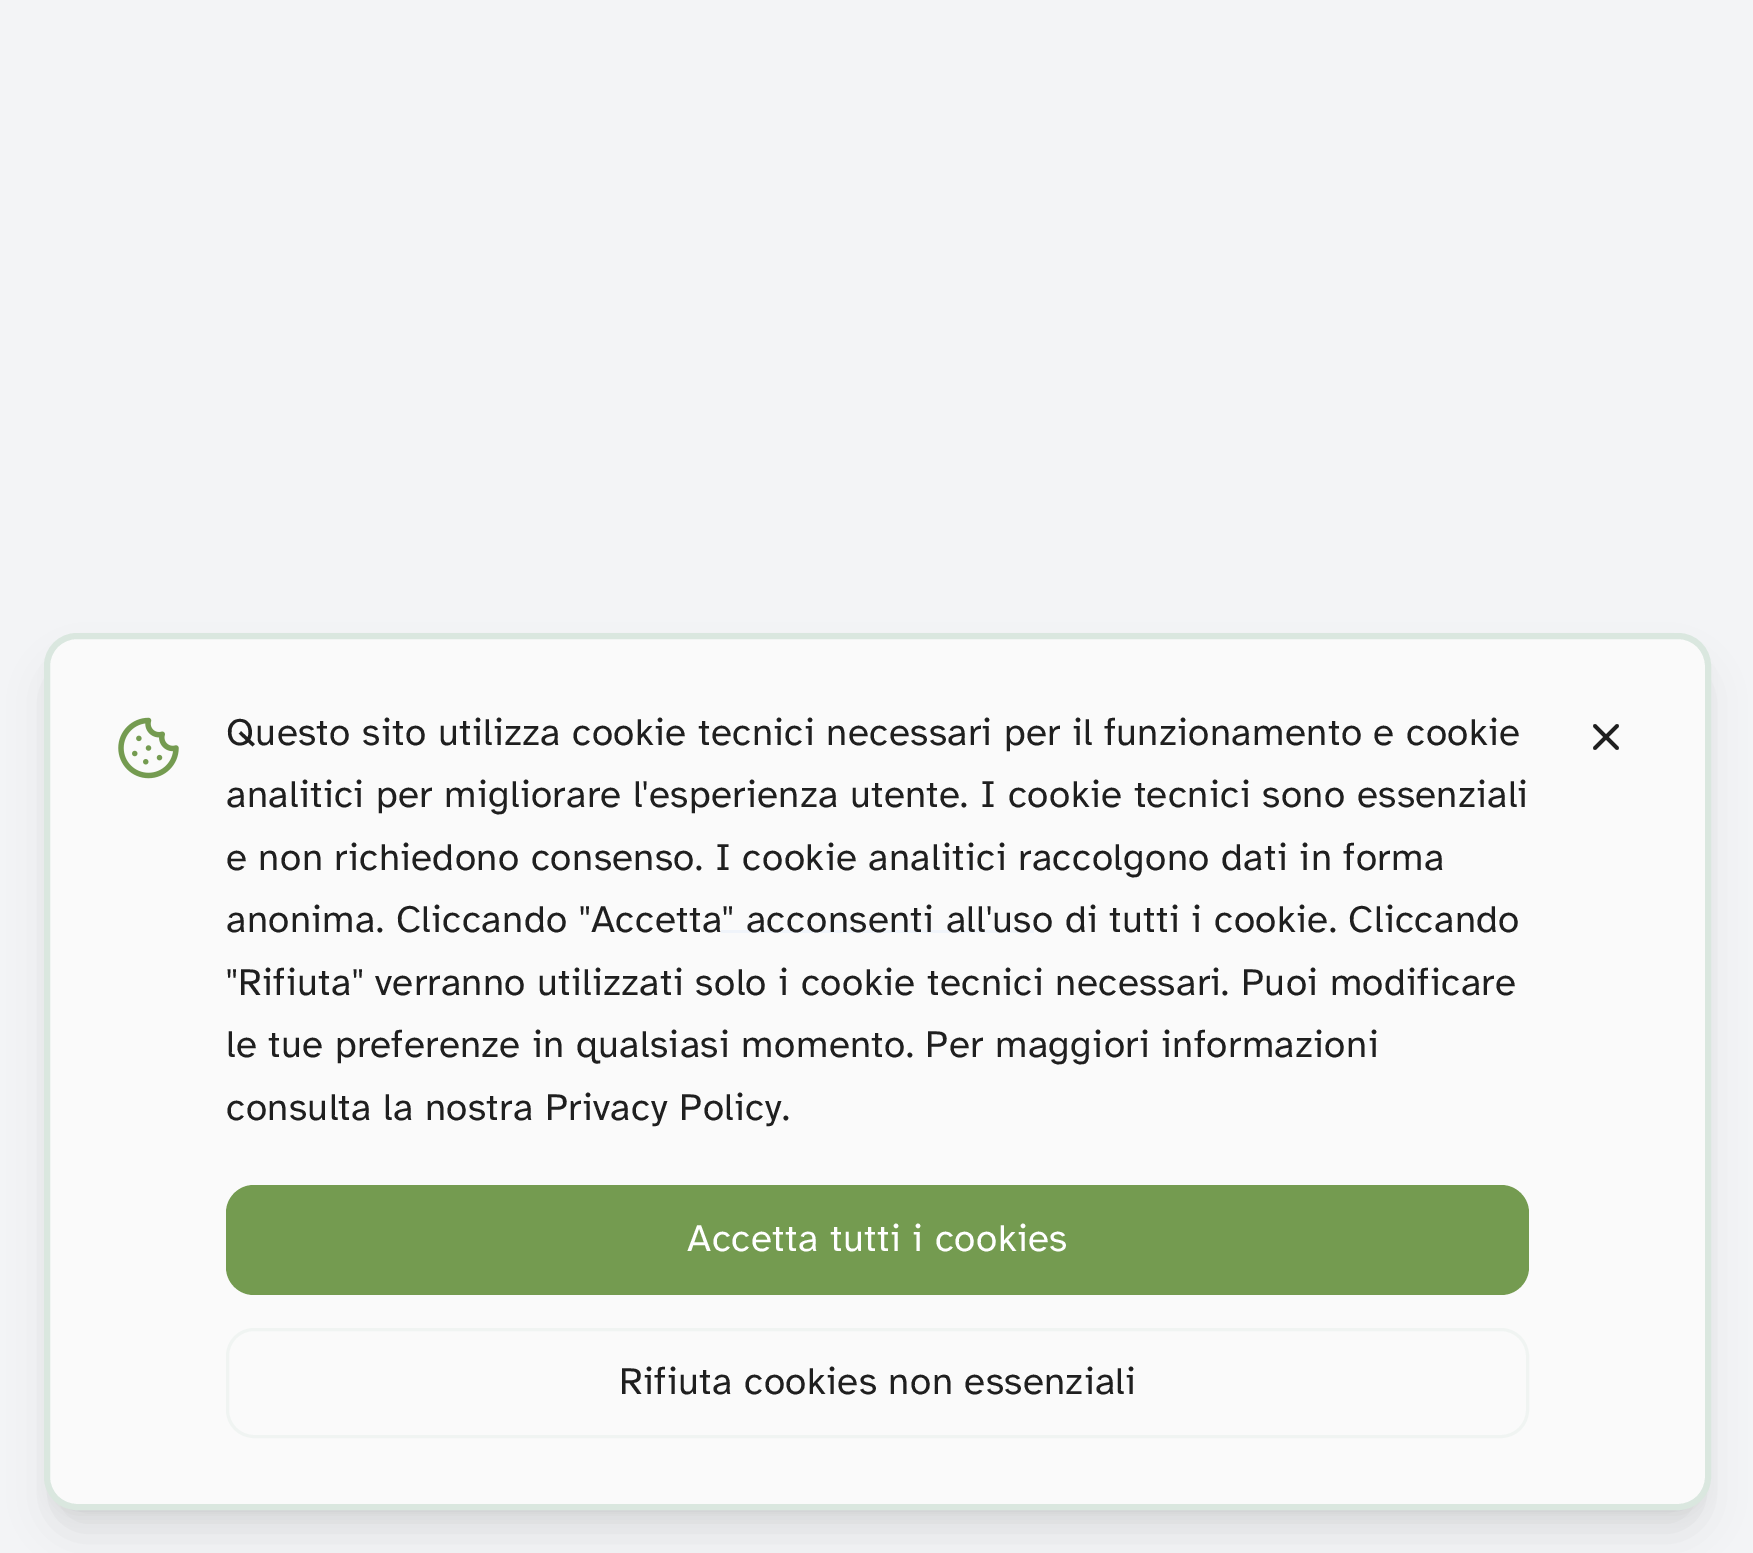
%!PS-Adobe-3.0
%%BoundingBox: 0 0 1753 1553
%%LanguageLevel: 3
%%Pages: 1
%%EndComments
%%BeginProlog
/m { moveto } bind def
/l { lineto } bind def
/c { curveto } bind def
/h { closepath } bind def
/f { fill } bind def
/S { stroke } bind def
/q { gsave } bind def
/Q { grestore } bind def
/w { setlinewidth } bind def
/fn { [ exch dup neg 0 0 3 -1 roll 0 0 ] selectfont } def
/bx { rectfill } def
/al { dup .setfillconstantalpha .setstrokeconstantalpha } def
/rr { 5 dict begin { /r /h /w /y /x } { exch def } forall
  x r add y moveto x w add y 2 copy h add r arct x w add y h add x 1 index r arct
  x y h add x y r arct x y 2 copy exch w add exch r arct closepath end } def
/sh { 12 dict begin { /a /b /q /h /w /y /x } { exch def } forall gsave /was 0 def
  9 -2 -9 { dup b mul 4 div /e exch def 1 sub .425 mul 2.718 exch exp 1 add a .99 .min exch div /now exch def
    1 1 now sub 1 was sub div sub al /was now def
    w h .min e 2 mul add 0 gt { x e sub y e sub w e 2 mul add h e 2 mul add
      q e add b .6 mul add w h .min 2 div e add .min 0 .max rr fill } if } for grestore end } def
/im { 5 dict begin { /h /w /y /x /name } { exch def } forall
  gsave x y translate w h scale
  w h 8 [w 0 0 h 0 0] name (r) file false 3 colorimage grestore end } def
%%EndProlog
%%BeginSetup
<< /PageSize [1753 1553] /PageUsesTransparency true >> setpagedevice
%%EndSetup
%%Page: 1 1
0 .pushpdf14devicefilter
0 1553 translate 1 -1 scale
4 setmiterlimit
0.953 0.957 0.965 setrgbcolor
0 0 1753 1553 bx
0.231 0.51 0.965 setrgbcolor
721 930 313 3 bx
q
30 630 m 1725 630 l 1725 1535 l 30 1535 l h 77 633 m 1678 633 l 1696 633 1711 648 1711 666 c 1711 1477 l 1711 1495 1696 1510 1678 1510 c 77 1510 l 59 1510 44 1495 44 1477 c 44 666 l 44 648 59 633 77 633 c h eoclip newpath
0 setgray
55 655 1645 855 22 8 0.1 sh
Q
q
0 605 m 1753 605 l 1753 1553 l 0 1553 l h 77 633 m 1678 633 l 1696 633 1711 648 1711 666 c 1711 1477 l 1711 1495 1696 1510 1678 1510 c 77 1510 l 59 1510 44 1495 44 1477 c 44 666 l 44 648 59 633 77 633 c h eoclip newpath
0 setgray
52 668 1650 861 25 20.5 0.1 sh
Q
0.95 al
0.98 setgray
47 636 1661 871 30 rr f
1 al
0.855 0.906 0.875 setrgbcolor
6 w
47 636 1661 871 30 rr S
(image0.raw) 118 717 61 62 im
/AtkinsonHyperlegible-Regular 38.5 fn
0.122 setgray
226 745 m 0.45 0 (Questo sito utilizza cookie tecnici necessari per il funzionamento e cookie) ashow
226 807 m 0.45 0 (analitici per migliorare l'esperienza utente. I cookie tecnici sono essenziali) ashow
226 870 m 0.45 0 (e non richiedono consenso. I cookie analitici raccolgono dati in forma) ashow
226 932 m 0.45 0 (anonima. Cliccando "Accetta" acconsenti all'uso di tutti i cookie. Cliccando) ashow
226 995 m 0.45 0 ("Rifiuta" verranno utilizzati solo i cookie tecnici necessari. Puoi modificare) ashow
226 1057 m 0.45 0 (le tue preferenze in qualsiasi momento. Per maggiori informazioni) ashow
226 1120 m 0.45 0 (consulta la nostra Privacy Policy.) ashow
0.455 0.608 0.314 setrgbcolor
226 1185 1303 110 28 rr f
1 setgray
687 1251 m 0.45 0 (Accetta tutti i cookies) ashow
0.941 0.957 0.949 setrgbcolor
3 w
227.5 1329.5 1300 107 26.5 rr S
0.122 setgray
619 1394 m 0.45 0 (Rifiuta cookies non essenziali) ashow
3.7 w
1 setlinecap
1 setlinejoin
1617 726 m 1595 748 l 1595 726 m 1617 748 l S
.poppdf14devicefilter showpage
%%EOF
